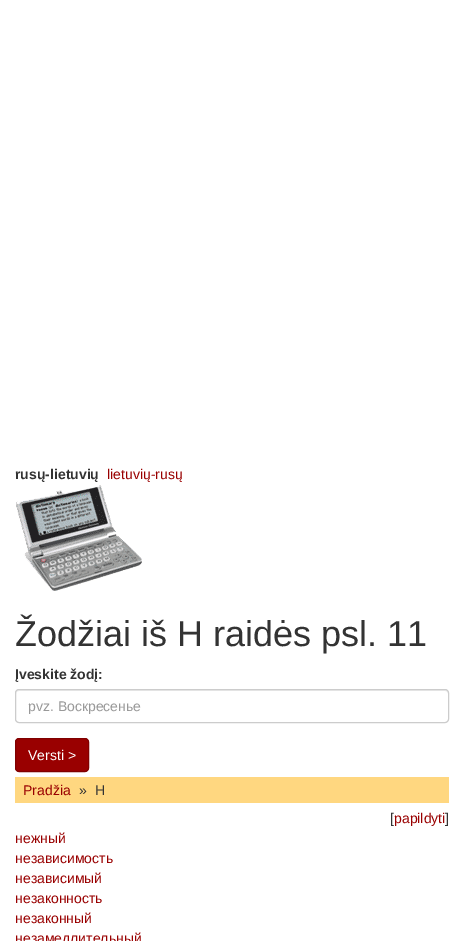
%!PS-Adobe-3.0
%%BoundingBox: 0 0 464 941
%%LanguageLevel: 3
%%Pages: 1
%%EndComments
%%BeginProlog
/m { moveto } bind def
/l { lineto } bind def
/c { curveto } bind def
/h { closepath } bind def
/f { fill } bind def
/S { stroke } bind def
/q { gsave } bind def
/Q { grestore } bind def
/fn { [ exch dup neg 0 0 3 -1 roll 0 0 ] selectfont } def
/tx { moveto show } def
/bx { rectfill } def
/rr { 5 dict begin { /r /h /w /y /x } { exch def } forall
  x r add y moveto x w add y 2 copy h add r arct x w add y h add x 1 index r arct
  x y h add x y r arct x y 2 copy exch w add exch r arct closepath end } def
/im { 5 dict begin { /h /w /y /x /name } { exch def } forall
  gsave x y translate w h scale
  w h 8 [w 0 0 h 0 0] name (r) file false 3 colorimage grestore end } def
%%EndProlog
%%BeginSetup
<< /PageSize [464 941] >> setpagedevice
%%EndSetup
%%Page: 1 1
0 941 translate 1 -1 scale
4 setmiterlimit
1 setgray
0 0 464 941 bx
/LiberationSans-Bold 14 fn
0.2 setgray
(rusų-lietuvių) 15 479 tx
/LiberationSans-Regular 14 fn
0.6 0 0 setrgbcolor
(lietuvių-rusų) 107 479 tx
(image0.raw) 16 485 126 106 im
/LiberationSans-Regular 36 fn
0.2 setgray
(Žodžiai iš Н raidės psl. 11) 15 646 tx
/LiberationSans-Bold 14 fn
(Įveskite žodį:) 15 679 tx
0.925 setgray
19 691 m 445 691 l 447 691 448 692 448 694 c 448 692 447 690 445 690 c 19 690 l 17 690 16 692 16 694 c 16 692 17 691 19 691 c h f
0.8 setgray
15.5 689.5 433 33 3.5 rr S
/LiberationSans-Regular 14 fn
0.6 setgray
(pvz. Воскресенье) 28 711 tx
0.6 0 0 setrgbcolor
15.5 738.5 73 33 3.5 rr q f Q
0.502 0 0 setrgbcolor
S
1 setgray
(Versti >) 28 760 tx
1 0.843 0.502 setrgbcolor
15 777 434 26 bx
0.6 0 0 setrgbcolor
(Pradžia) 23 795 tx
0.2 setgray
(») 79 795 tx
(Н) 95 795 tx
([) 390 823 tx
0.6 0 0 setrgbcolor
(papildyti) 394 823 tx
0.2 setgray
(]) 445 823 tx
0.6 0 0 setrgbcolor
(нежный) 15 843 tx
(независимость) 15 863 tx
(независимый) 15 883 tx
(незаконность) 15 903 tx
(незаконный) 15 923 tx
(незамедлительный) 15 943 tx
showpage
%%EOF
